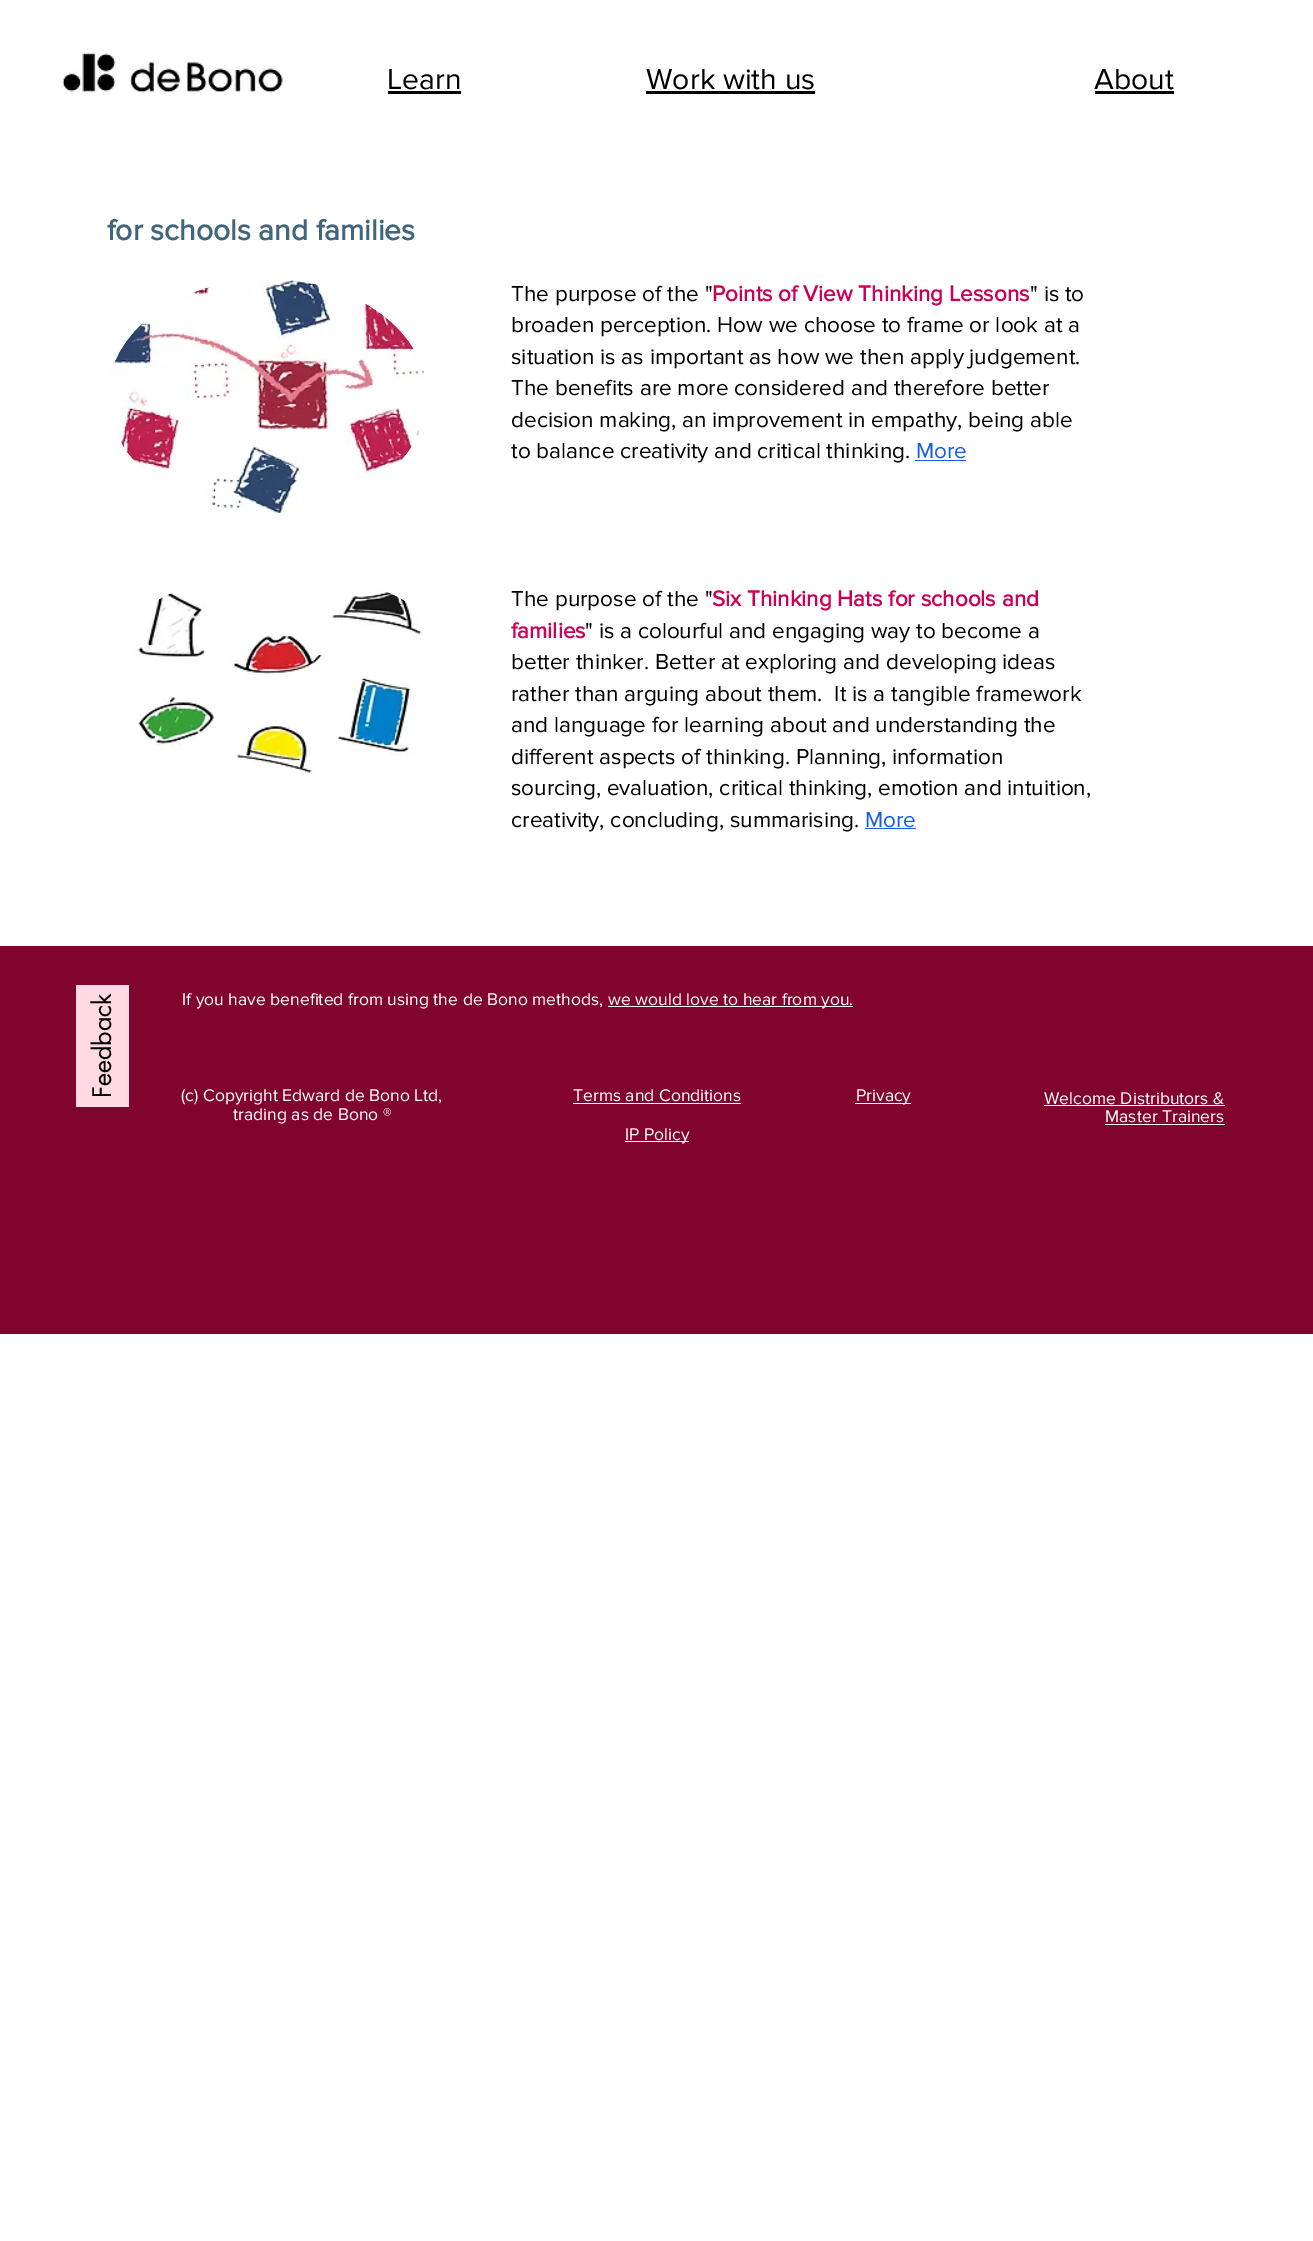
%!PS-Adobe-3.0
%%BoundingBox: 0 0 1313 2241
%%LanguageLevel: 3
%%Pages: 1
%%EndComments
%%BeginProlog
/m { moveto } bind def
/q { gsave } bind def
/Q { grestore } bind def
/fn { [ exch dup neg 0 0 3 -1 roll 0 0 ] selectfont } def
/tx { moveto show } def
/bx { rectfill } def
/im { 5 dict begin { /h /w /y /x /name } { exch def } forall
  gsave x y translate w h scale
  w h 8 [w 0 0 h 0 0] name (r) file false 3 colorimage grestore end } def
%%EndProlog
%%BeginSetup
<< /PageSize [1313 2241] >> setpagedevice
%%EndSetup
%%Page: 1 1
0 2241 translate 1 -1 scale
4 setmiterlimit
1 setgray
0 0 1313 2241 bx
(image0.raw) 62 53 221 40 im
/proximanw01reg-Regular 30 fn
0 setgray
(Learn) 387 89 tx
388 91 73 3 bx
(Work with us) 646 89 tx
646 91 169 3 bx
(About) 1094 89 tx
1095 91 79 3 bx
/proximanw01reg-Bold 30 fn
0.251 0.4 0.486 setrgbcolor
(for schools and families) 107 240 tx
(image1.raw) 111 280 313 233 im
/proximanw01reg-Regular 22.5 fn
0 setgray
(The purpose of the ") 511 301 tx
/proximanw01reg-Bold 22.5 fn
0.8 0 0.333 setrgbcolor
(Points of View Thinking Lessons) 712 301 tx
/proximanw01reg-Regular 22.5 fn
0 setgray
(" is to) 1030 301 tx
(broaden perception. How we choose to frame or look at a) 511 332 tx
(situation is as important as how we then apply judgement.) 511 364 tx
(The benefits are more considered and therefore better) 511 395 tx
(decision making, an improvement in empathy, being able) 511 427 tx
(to balance creativity and critical thinking.) 511 458 tx
0.082 0.365 0.914 setrgbcolor
(More) 916 458 tx
915 460 51 1 bx
(image2.raw) 135 590 288 185 im
0 setgray
(The purpose of the ") 511 606 tx
/proximanw01reg-Bold 22.5 fn
0.8 0 0.333 setrgbcolor
(Six Thinking Hats for schools and) 712 606 tx
(families) 511 638 tx
/proximanw01reg-Regular 22.5 fn
0 setgray
(" is a colourful and engaging way to become a) 585 638 tx
(better thinker. Better at exploring and developing ideas) 511 669 tx
(rather than arguing about them.  It is a tangible framework) 511 701 tx
(and language for learning about and understanding the) 511 732 tx
(different aspects of thinking. Planning, information) 511 764 tx
(sourcing, evaluation, critical thinking, emotion and intuition,) 511 795 tx
(creativity, concluding, summarising.) 511 827 tx
0.082 0.365 0.914 setrgbcolor
(More) 865 827 tx
865 828 51 1 bx
0.506 0.016 0.18 setrgbcolor
0 946 1313 388 bx
1 0.851 0.894 setrgbcolor
76 985 53 122 bx
/futura-Regular 25 fn
0 setgray
q 111 1098 translate -90 rotate 0 0 m (Feedback) show Q
/proximanw01reg-Regular 17.5 fn
1 setgray
(If you have benefited from using the de Bono methods,) 182 1005 tx
608 1006 245 1 bx
(we would love to hear from you.) 608 1005 tx
(\(c\) Copyright Edward de Bono Ltd,) 181 1101 tx
(trading as de Bono ®) 233 1120 tx
(Terms and Conditions) 573 1101 tx
573 1103 168 1 bx
855 1103 56 1 bx
(Privacy) 856 1101 tx
(Welcome Distributors &) 1044 1104 tx
1044 1105 181 1 bx
(Master Trainers) 1105 1122 tx
1105 1124 120 1 bx
625 1141 64 1 bx
(IP Policy) 625 1140 tx
showpage
%%EOF
